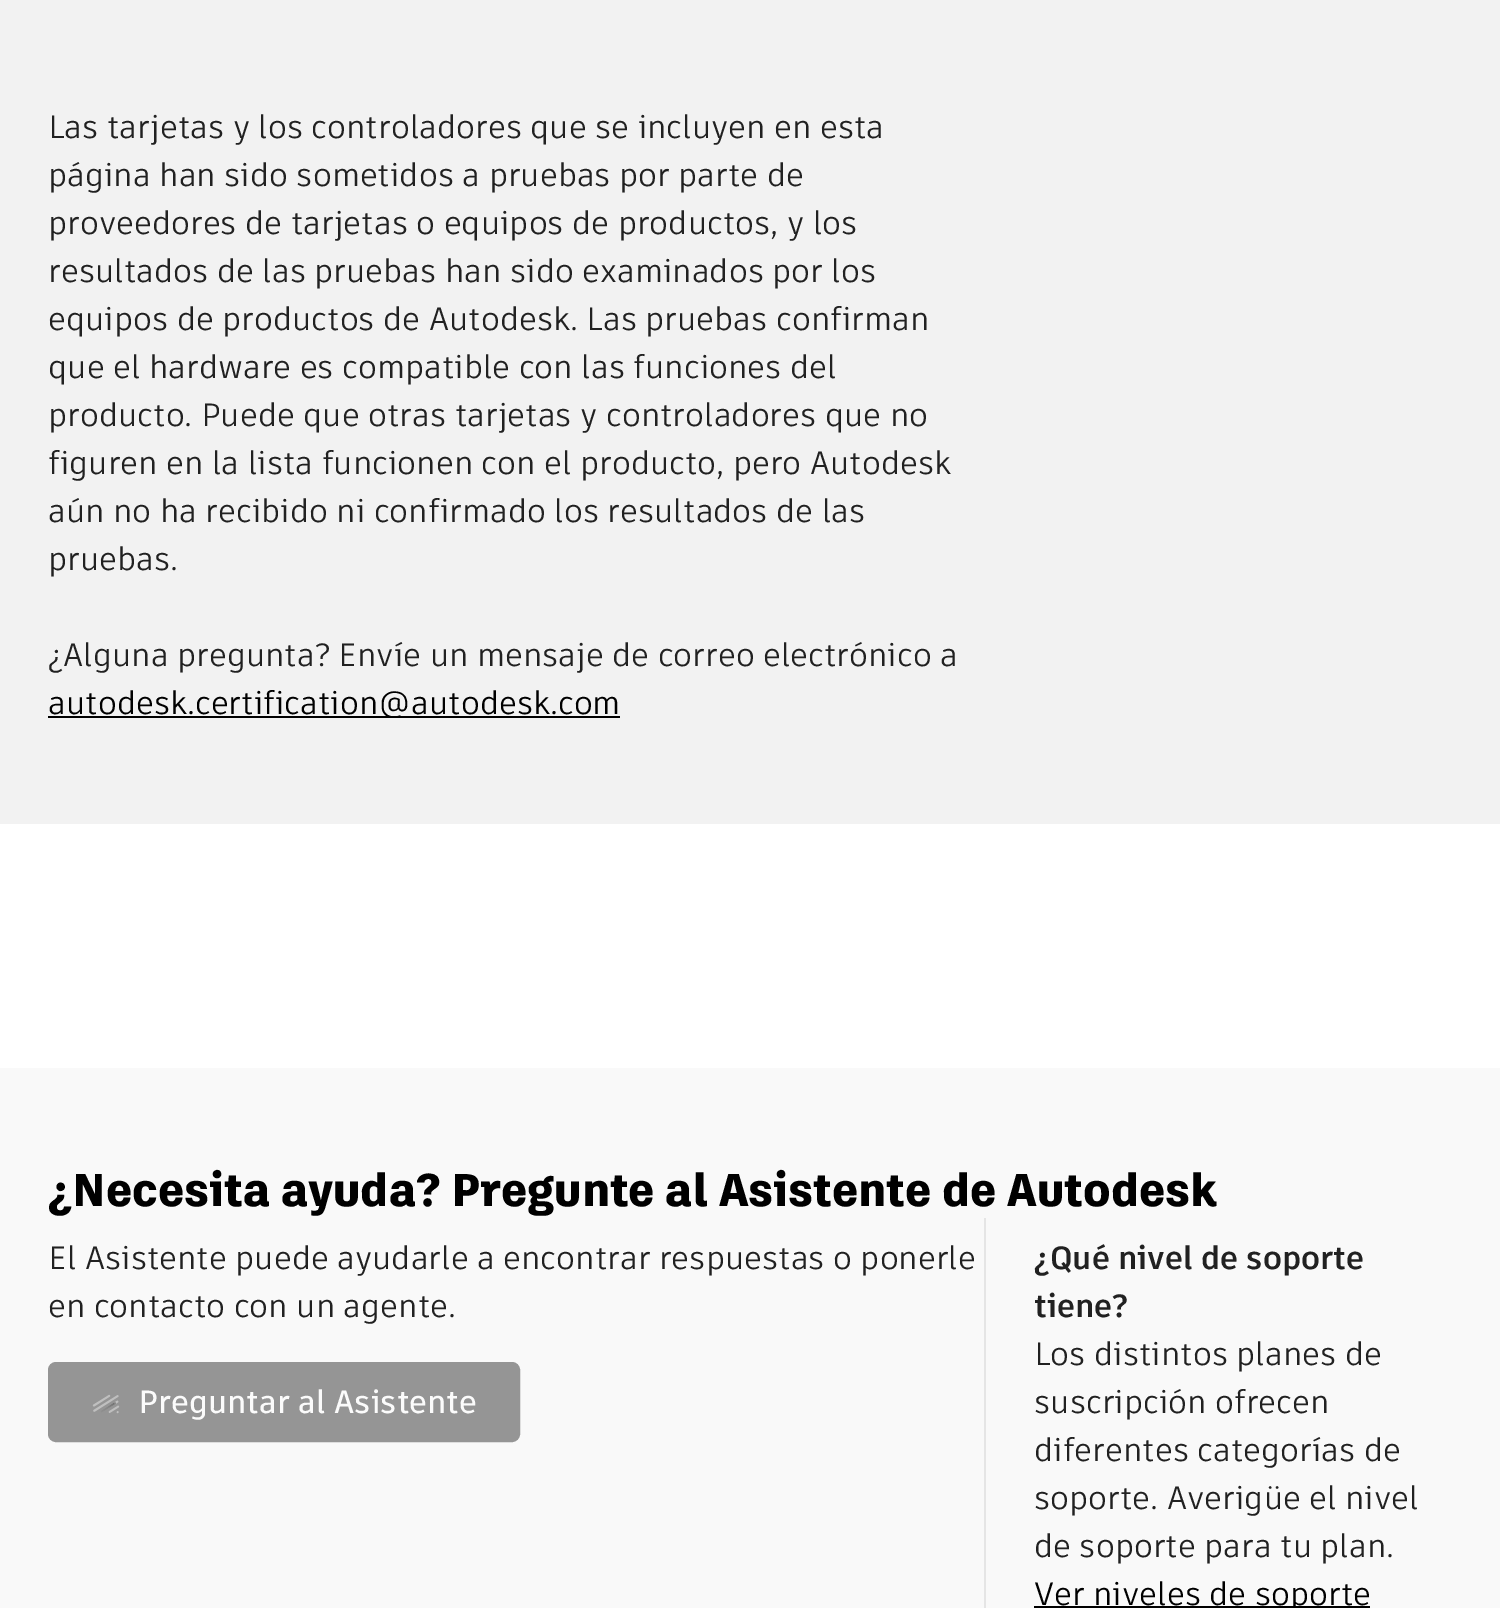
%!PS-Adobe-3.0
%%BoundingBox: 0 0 1500 1608
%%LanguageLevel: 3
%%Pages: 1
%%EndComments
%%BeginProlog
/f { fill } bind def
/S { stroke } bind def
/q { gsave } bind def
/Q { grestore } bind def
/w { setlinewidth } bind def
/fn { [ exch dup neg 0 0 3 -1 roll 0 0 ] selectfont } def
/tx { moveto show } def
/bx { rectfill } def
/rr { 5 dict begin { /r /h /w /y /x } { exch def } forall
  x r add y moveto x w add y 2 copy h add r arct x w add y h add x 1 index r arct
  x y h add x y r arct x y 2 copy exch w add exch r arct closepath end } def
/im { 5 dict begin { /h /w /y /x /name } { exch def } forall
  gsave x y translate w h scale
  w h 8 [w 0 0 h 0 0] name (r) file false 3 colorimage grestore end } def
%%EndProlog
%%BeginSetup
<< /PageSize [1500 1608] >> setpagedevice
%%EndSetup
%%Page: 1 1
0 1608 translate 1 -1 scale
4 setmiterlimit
1 setgray
0 0 1500 1608 bx
0.949 setgray
0 0 1500 824 bx
/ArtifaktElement-Regular 32 fn
0.129 setgray
(Las tarjetas y los controladores que se incluyen en esta) 48 138 tx
(página han sido sometidos a pruebas por parte de) 48 186 tx
(proveedores de tarjetas o equipos de productos, y los) 48 234 tx
(resultados de las pruebas han sido examinados por los) 48 282 tx
(equipos de productos de Autodesk. Las pruebas confirman) 48 330 tx
(que el hardware es compatible con las funciones del) 48 378 tx
(producto. Puede que otras tarjetas y controladores que no) 48 426 tx
(figuren en la lista funcionen con el producto, pero Autodesk) 48 474 tx
(aún no ha recibido ni confirmado los resultados de las) 48 522 tx
(pruebas.) 48 570 tx
(¿Alguna pregunta? Envíe un mensaje de correo electrónico a) 48 666 tx
0 setgray
48 716 572 2 bx
(autodesk.certification@autodesk.com) 48 714 tx
0.976 setgray
0 1068 1500 540 bx
/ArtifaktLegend-ExtraBold 45.65 fn
0 setgray
(¿Necesita ayuda? Pregunte al Asistente de Autodesk) 48 1206 tx
/ArtifaktElement-Regular 32 fn
0.129 setgray
(El Asistente puede ayudarle a encontrar respuestas o ponerle) 48 1269 tx
(en contacto con un agente.) 48 1317 tx
0.584 setgray
49 1363 470 78 7 rr q f Q
2 w
S
(image0.raw) 92 1394 28 20 im
/ArtifaktElement-SemiBold 32 fn
0.984 setgray
(Preguntar al Asistente) 138 1413 tx
0.898 setgray
984 1218 2 390 bx
/ArtifaktElement-Bold 32 fn
0.129 setgray
(¿Qué nivel de soporte) 1034 1269 tx
(tiene?) 1034 1317 tx
/ArtifaktElement-Regular 32 fn
(Los distintos planes de) 1034 1365 tx
(suscripción ofrecen) 1034 1413 tx
(diferentes categorías de) 1034 1461 tx
(soporte. Averigüe el nivel) 1034 1509 tx
(de soporte para tu plan.) 1034 1557 tx
0 setgray
1034 1606 336 2 bx
(Ver niveles de soporte) 1034 1605 tx
showpage
%%EOF
